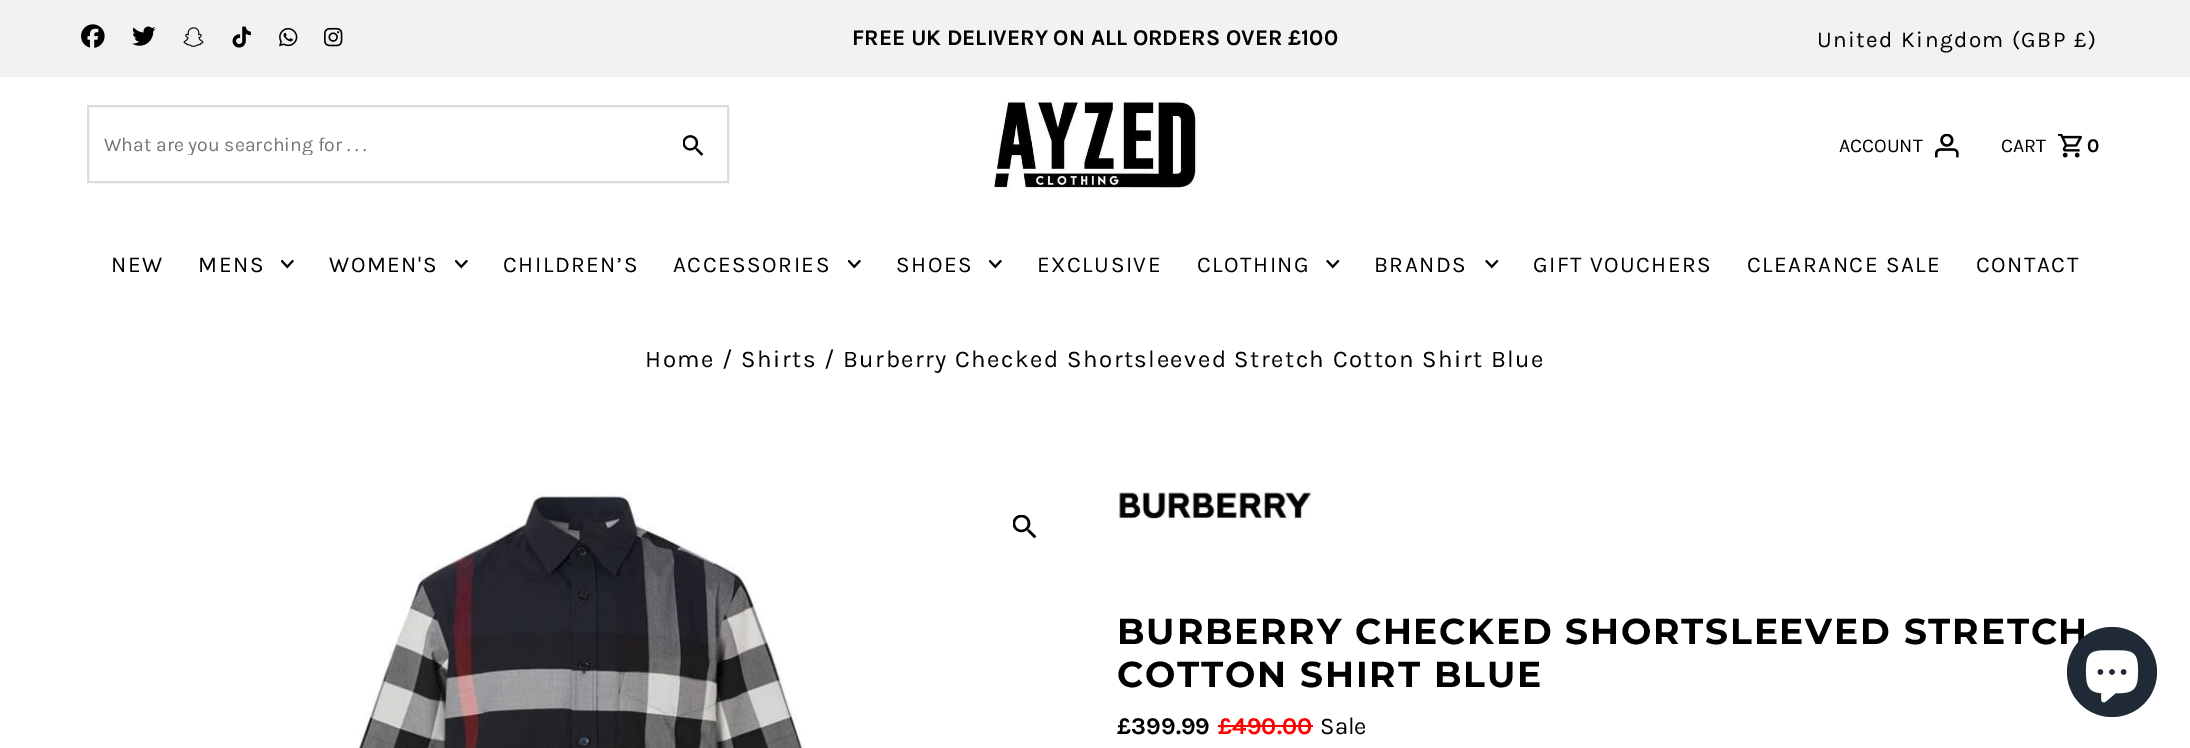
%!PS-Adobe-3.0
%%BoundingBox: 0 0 2190 748
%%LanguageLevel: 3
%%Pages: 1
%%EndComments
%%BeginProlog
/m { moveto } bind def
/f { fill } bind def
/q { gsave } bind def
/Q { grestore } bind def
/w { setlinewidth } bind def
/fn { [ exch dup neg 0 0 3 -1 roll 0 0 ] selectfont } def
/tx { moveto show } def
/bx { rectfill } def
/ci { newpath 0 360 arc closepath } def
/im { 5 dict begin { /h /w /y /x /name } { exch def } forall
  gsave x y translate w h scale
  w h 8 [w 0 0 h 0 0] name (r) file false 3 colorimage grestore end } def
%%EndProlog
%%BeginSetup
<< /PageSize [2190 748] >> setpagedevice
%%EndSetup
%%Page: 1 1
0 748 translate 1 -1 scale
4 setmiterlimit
1 setgray
0 0 2190 748 bx
0.949 setgray
0 0 2190 77 bx
(image0.raw) 81 24 24 24 im
(image1.raw) 132 26 24 20 im
(image2.raw) 183 27 21 20 im
(image3.raw) 232 26 19 22 im
(image4.raw) 279 27 19 20 im
(image5.raw) 324 27 19 20 im
/Karla-Bold 22.5 fn
0 setgray
(FREE UK DELIVERY ON ALL ORDERS OVER £100) 852 45 tx
/Karla-Regular 22.5 fn
1817 47 m 1.5 0 (United Kingdom \(GBP £\)) ashow
0.867 setgray
2 w
88 106 640 76 rectstroke
q
89 132 567 23 rectclip
/Karla-Regular 19.5 fn
0.459 setgray
(What are you searching for . . .) 104 151 tx
Q
(image6.raw) 683 135 21 21 im
(image7.raw) 994 100 203 89 im
/Karla-Regular 19.5 fn
0 setgray
(ACCOUNT) 1839 152 tx
(image8.raw) 1935 134 24 24 im
(CART) 2001 152 tx
(image9.raw) 2058 134 24 24 im
/Karla-Bold 19.5 fn
(0) 2087 152 tx
/Karla-Regular 22.5 fn
111 272 m 1.5 0 (NEW) ashow
198 272 m 1.5 0 (MENS) ashow
(image10.raw) 281 260 13 9 im
329 272 m 1.5 0 (WOMEN'S) ashow
(image10.raw) 455 260 13 9 im
503 272 m 1.5 0 (CHILDREN’S) ashow
673 272 m 1.5 0 (ACCESSORIES) ashow
(image10.raw) 848 260 13 9 im
896 272 m 1.5 0 (SHOES) ashow
(image10.raw) 989 260 13 9 im
1037 272 m 1.5 0 (EXCLUSIVE) ashow
1197 272 m 1.5 0 (CLOTHING) ashow
(image11.raw) 1326 260 14 9 im
1374 272 m 1.5 0 (BRANDS) ashow
(image11.raw) 1485 260 14 9 im
1533 272 m 1.5 0 (GIFT VOUCHERS) ashow
1747 272 m 1.5 0 (CLEARANCE SALE) ashow
1976 272 m 1.5 0 (CONTACT) ashow
/Karla-Regular 24 fn
645 367 m 1.5 0 (Home / Shirts / Burberry Checked Shortsleeved Stretch Cotton Shirt Blue) ashow
(image12.raw) 356 493 449 255 im
(image13.raw) 1013 515 24 24 im
(image14.raw) 1117 492 195 28 im
/Montserrat-Bold 36 fn
1117 644 m 1.8 0 (BURBERRY CHECKED SHORTSLEEVED STRETCH) ashow
1117 687 m 1.8 0 (COTTON SHIRT BLUE) ashow
/Karla-Bold 24 fn
(£399.99) 1117 734 tx
1 0 0 setrgbcolor
(£490.00) 1218 734 tx
1218 725 95 2 bx
/Karla-Regular 24 fn
0 setgray
(Sale) 1320 734 tx
0.125 0.165 0.212 setrgbcolor
2112 672 45 ci f
(image15.raw) 2085 650 54 53 im
showpage
%%EOF
